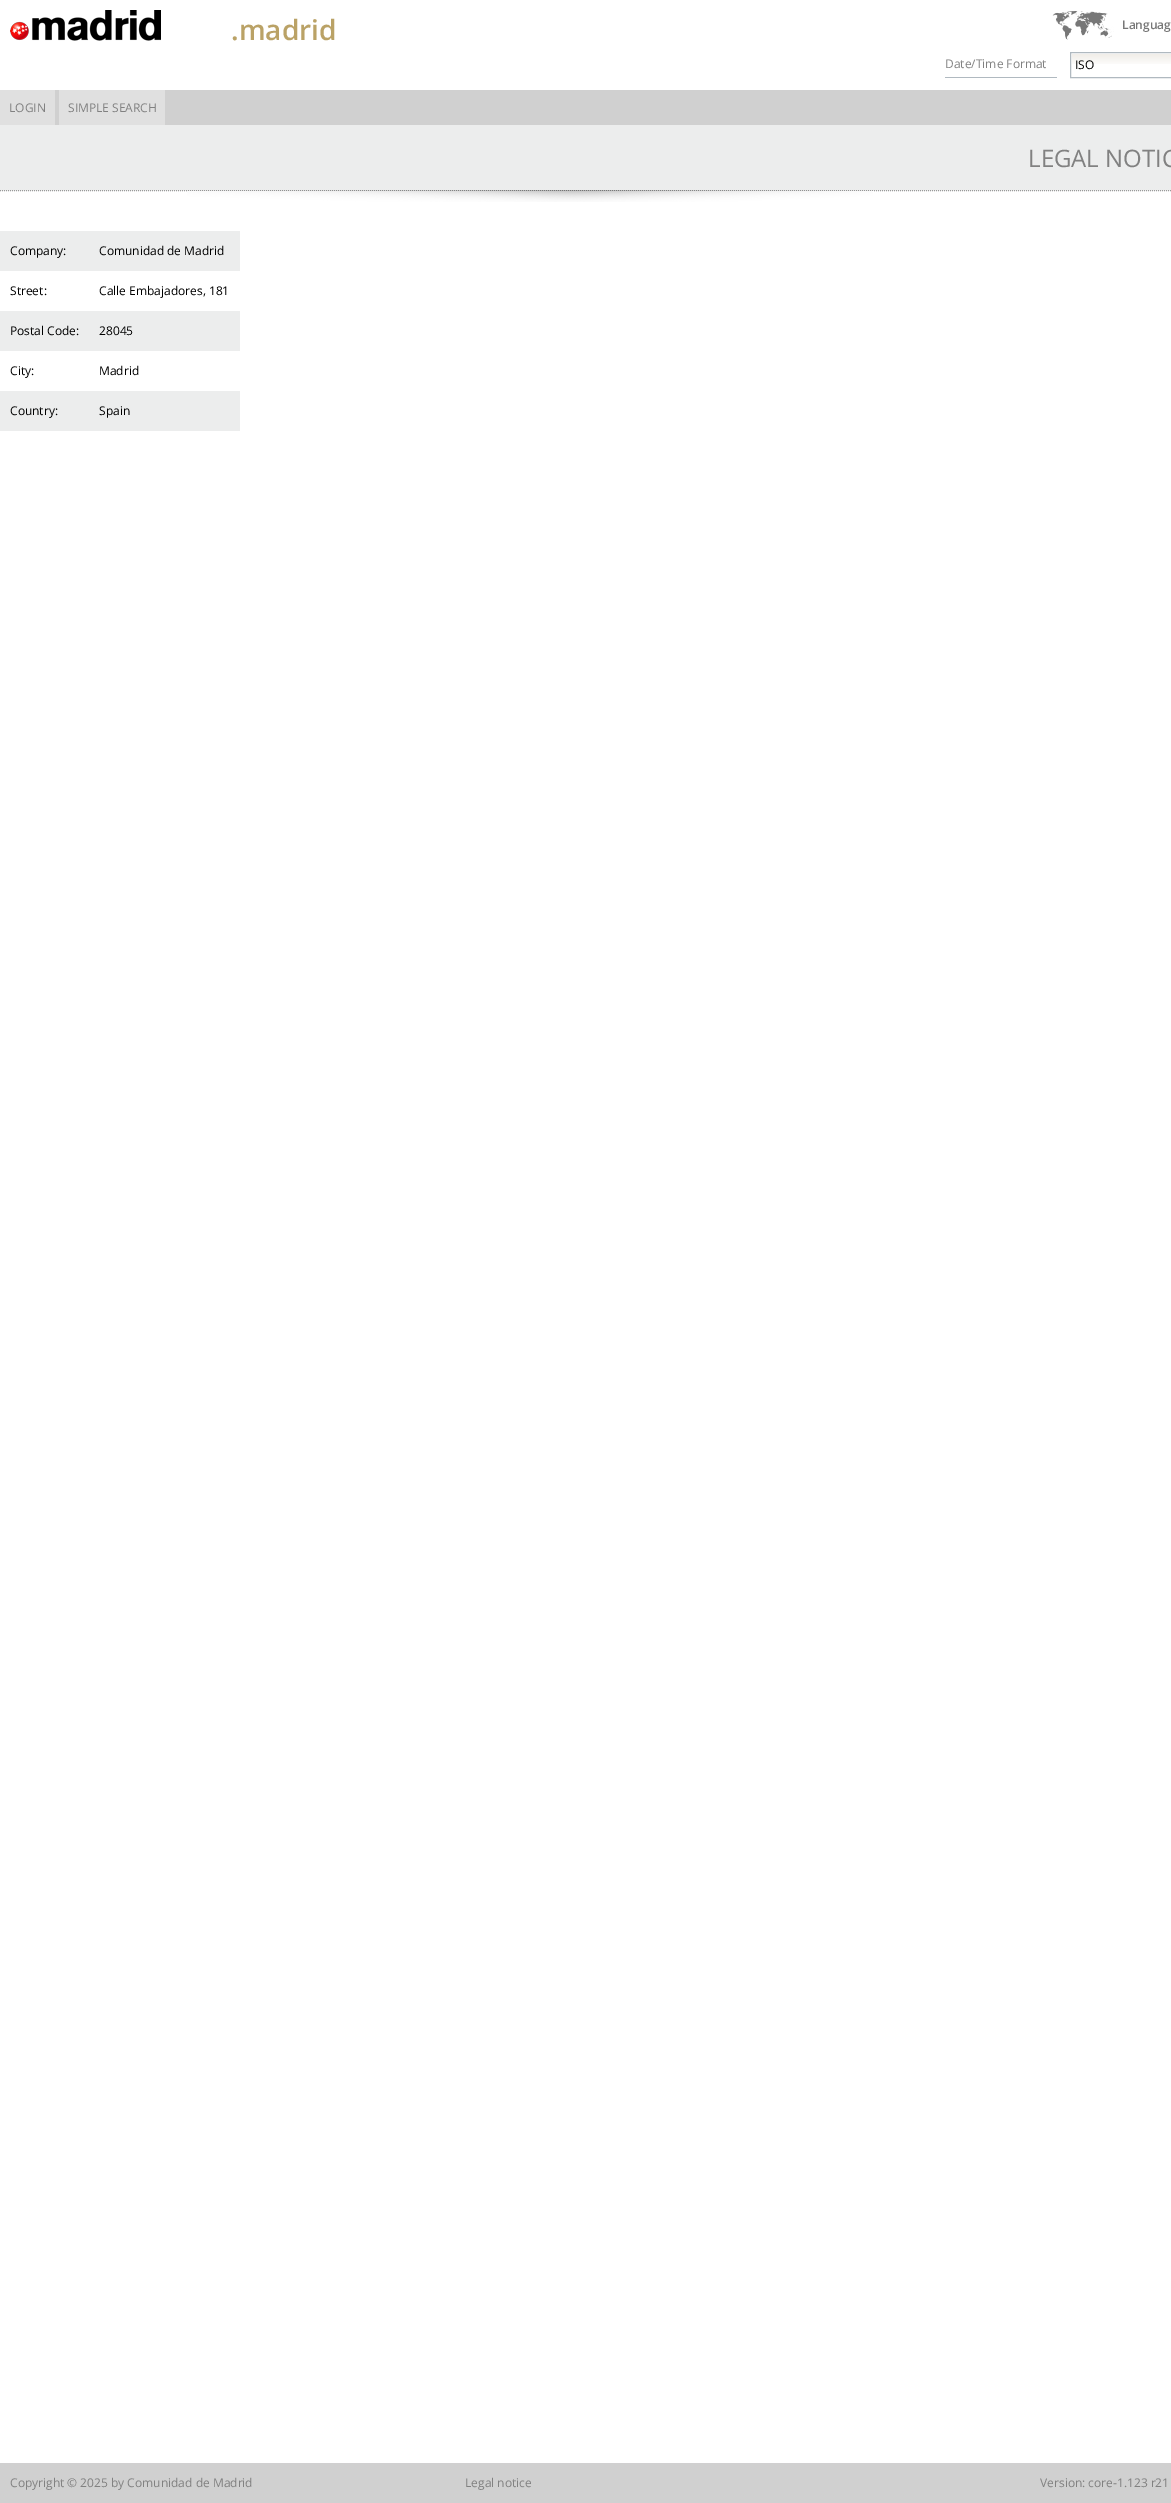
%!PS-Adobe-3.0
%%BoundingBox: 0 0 1171 2503
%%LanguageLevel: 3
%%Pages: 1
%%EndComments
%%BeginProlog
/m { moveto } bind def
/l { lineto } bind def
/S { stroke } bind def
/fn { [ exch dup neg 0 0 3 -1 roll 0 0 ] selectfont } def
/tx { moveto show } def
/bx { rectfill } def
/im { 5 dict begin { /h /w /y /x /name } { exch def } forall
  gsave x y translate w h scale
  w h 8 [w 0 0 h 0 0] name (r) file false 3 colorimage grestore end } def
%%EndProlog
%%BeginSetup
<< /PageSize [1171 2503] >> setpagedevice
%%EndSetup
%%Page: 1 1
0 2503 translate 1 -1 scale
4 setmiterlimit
1 setgray
0 0 1171 2503 bx
(image0.raw) 10 10 151 31 im
/OpenSans-SemiBold 28 fn
0.729 0.635 0.4 setrgbcolor
(.madrid) 231 40 tx
(image1.raw) 1052 11 62 29 im
/OpenSans-SemiBold 12 fn
0.467 setgray
(Languag) 1122 29 tx
0.69 0.725 0.753 setrgbcolor
945 77 112 1 bx
/OpenSans-Regular 12 fn
0.506 setgray
(Date/Time Format) 945 68 tx
(image2.raw) 1072 54 99 10 im
0.69 0.725 0.753 setrgbcolor
1070.5 52.5 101 25 rectstroke
0 setgray
(ISO) 1075 69 tx
0.816 setgray
55 90 1116 35 bx
0.878 setgray
0 90 55 35 bx
0.506 setgray
(LOGIN) 9 112 tx
0.878 setgray
59 90 106 35 bx
0.506 setgray
(SIMPLE SEARCH) 68 112 tx
0.925 0.929 0.929 setrgbcolor
0 125 1171 66 bx
0.6 setgray
[1 1] 0 setdash
0 190.5 m 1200 190.5 l S
/OpenSans-Regular 24 fn
0.506 setgray
(LEGAL NOTIC) 1028 167 tx
(image3.raw) 187 190 686 12 im
0.925 0.929 0.929 setrgbcolor
0 231 240 40 bx
/OpenSans-Regular 12 fn
0 setgray
(Company:) 10 255 tx
(Comunidad de Madrid) 99 255 tx
(Street:) 10 295 tx
(Calle Embajadores, 181) 99 295 tx
0.925 0.929 0.929 setrgbcolor
0 311 240 40 bx
0 setgray
(Postal Code:) 10 335 tx
(28045) 99 335 tx
(City:) 10 375 tx
(Madrid) 99 375 tx
0.925 0.929 0.929 setrgbcolor
0 391 240 40 bx
0 setgray
(Country:) 10 415 tx
(Spain) 99 415 tx
0.816 setgray
0 2463 1171 40 bx
0.506 setgray
(Copyright © 2025 by Comunidad de Madrid) 10 2487 tx
(Legal notice) 465 2487 tx
(Version: core-1.123 r21) 1040 2487 tx
showpage
%%EOF
